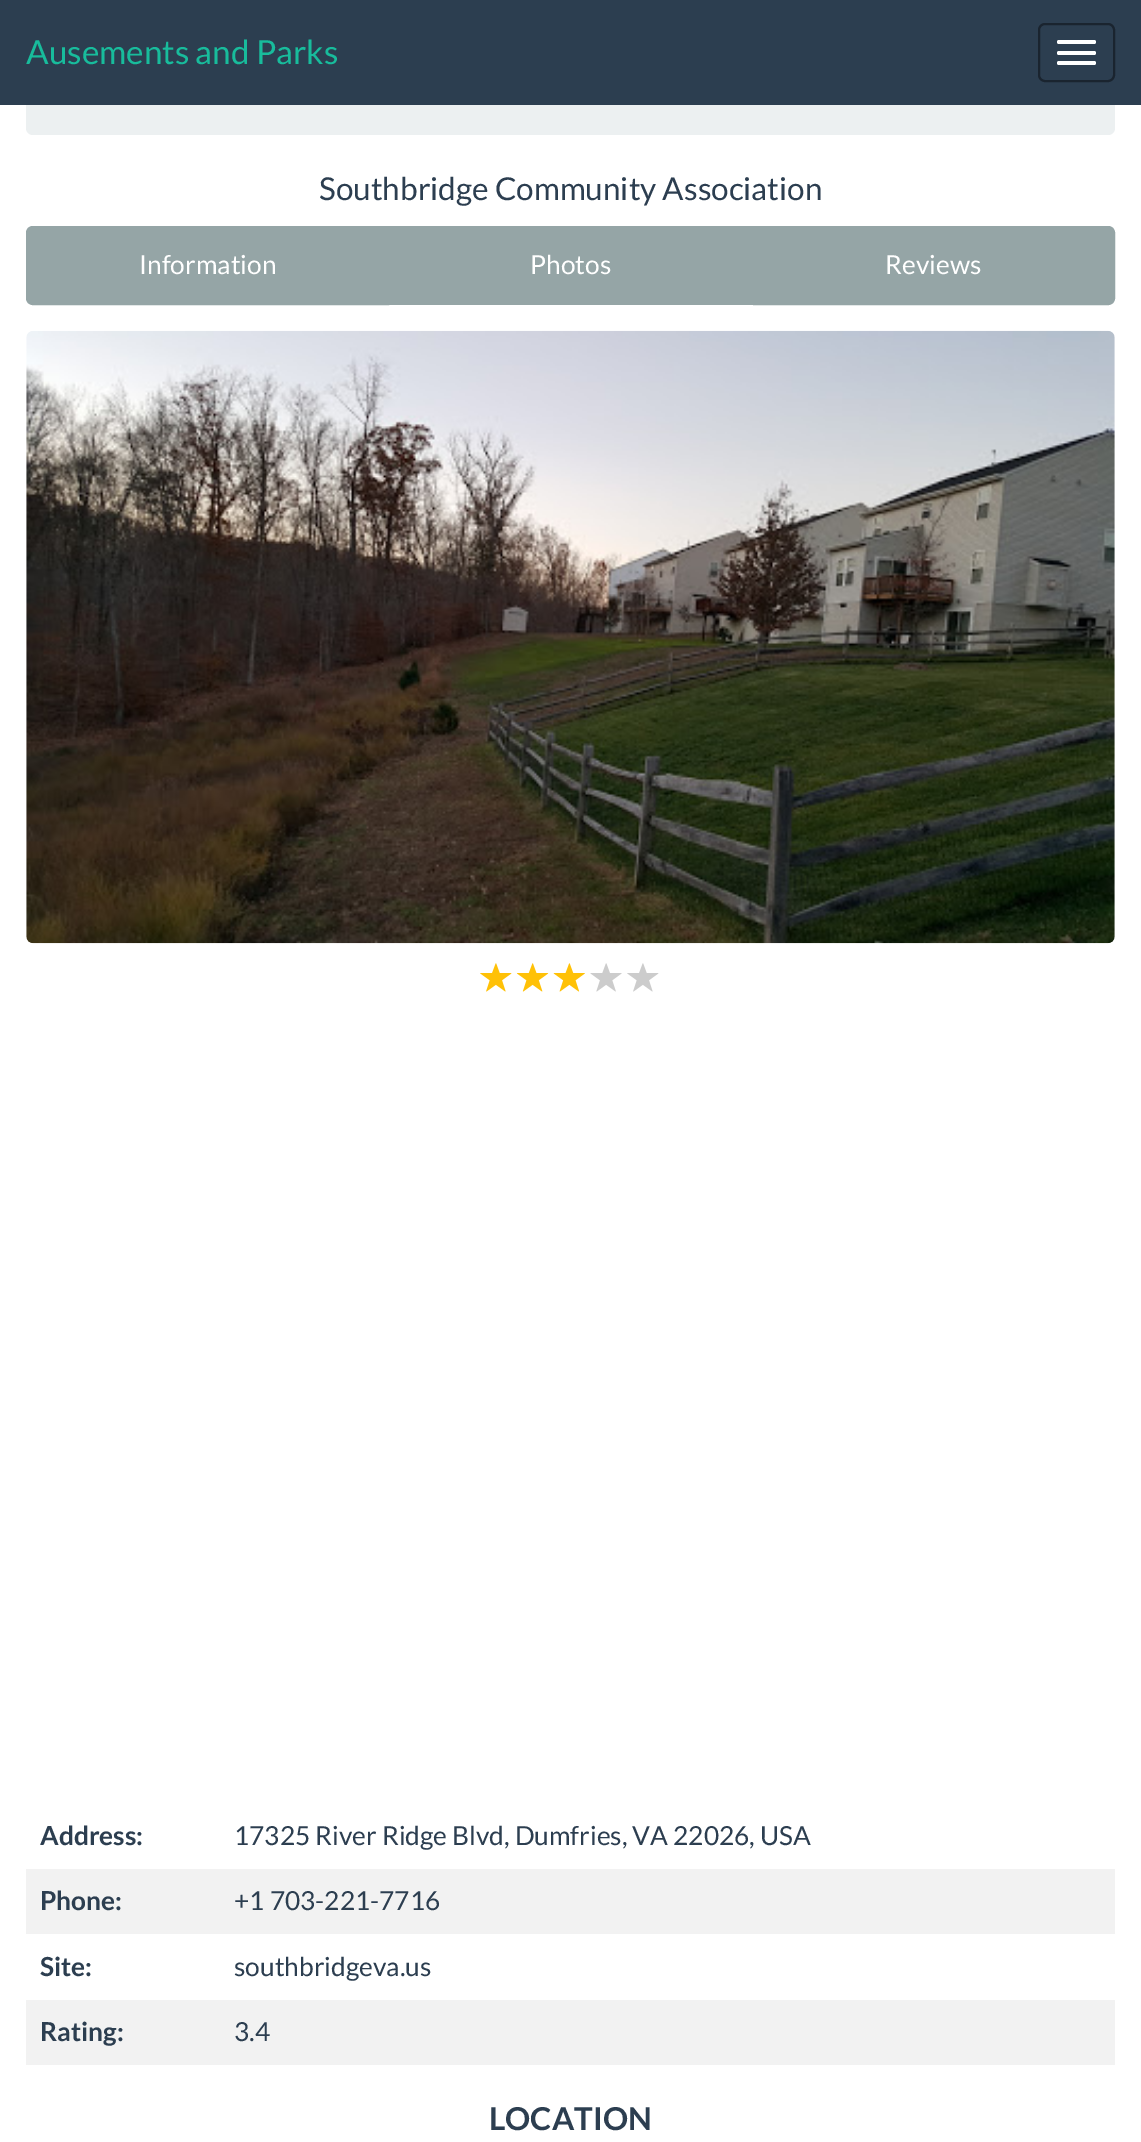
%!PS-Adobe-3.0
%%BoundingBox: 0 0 1141 2142
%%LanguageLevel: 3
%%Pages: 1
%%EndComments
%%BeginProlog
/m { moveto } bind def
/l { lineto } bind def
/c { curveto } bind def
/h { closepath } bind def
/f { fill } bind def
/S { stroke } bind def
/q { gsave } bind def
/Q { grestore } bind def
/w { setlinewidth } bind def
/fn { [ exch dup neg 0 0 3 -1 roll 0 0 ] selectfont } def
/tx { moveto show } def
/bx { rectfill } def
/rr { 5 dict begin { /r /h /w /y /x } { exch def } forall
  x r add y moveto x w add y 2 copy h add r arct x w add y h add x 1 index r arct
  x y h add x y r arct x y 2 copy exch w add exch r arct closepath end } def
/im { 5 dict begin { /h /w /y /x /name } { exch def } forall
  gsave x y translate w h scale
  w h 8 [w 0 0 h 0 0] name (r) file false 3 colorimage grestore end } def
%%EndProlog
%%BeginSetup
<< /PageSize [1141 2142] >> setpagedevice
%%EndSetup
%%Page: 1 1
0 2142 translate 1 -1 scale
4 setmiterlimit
1 setgray
0 0 1141 2142 bx
0.925 0.941 0.945 setrgbcolor
26 70 1089 65 7 rr f
0.173 0.243 0.314 setrgbcolor
0 0 1141 105 bx
/Lato-Regular 33.25 fn
0.094 0.737 0.612 setrgbcolor
(Ausements and Parks) 26 64 tx
0.102 0.141 0.184 setrgbcolor
2 w
1039 24 75 57 6 rr S
1 setgray
1057 40 39 4 2 rr f
1057 51 39 4 2 rr f
1057 61 39 4 2 rr f
/Lato-Regular 31.5 fn
0.173 0.243 0.314 setrgbcolor
(Southbridge Community Association) 319 200 tx
0.584 0.647 0.651 setrgbcolor
33 228 m 387 228 l 387 303 l 33 303 l 30 303 28 301 28 298 c 28 233 l 28 230 30 228 33 228 c h q f Q
4 w
S
/Lato-Regular 26.25 fn
1 setgray
(Information) 139 274 tx
0.584 0.647 0.651 setrgbcolor
389 226 364 79 bx
1 setgray
(Photos) 530 274 tx
0.584 0.647 0.651 setrgbcolor
755 228 m 1108 228 l 1111 228 1113 230 1113 233 c 1113 298 l 1113 301 1111 303 1108 303 c 755 303 l h q f Q
S
1 setgray
(Reviews) 885 274 tx
(image0.raw) 26 330 1089 614 im
(image1.raw) 480 963 32 29 im
(image2.raw) 516 963 33 29 im
(image3.raw) 553 963 32 29 im
(image4.raw) 590 963 32 29 im
(image5.raw) 627 963 32 29 im
/Lato-Bold 26.25 fn
0.173 0.243 0.314 setrgbcolor
(Address:) 40 1845 tx
/Lato-Regular 26.25 fn
(17325 River Ridge Blvd, Dumfries, VA 22026, USA) 234 1845 tx
0.949 setgray
26 1869 1089 65 bx
/Lato-Bold 26.25 fn
0.173 0.243 0.314 setrgbcolor
(Phone:) 40 1910 tx
/Lato-Regular 26.25 fn
(+1 703-221-7716) 234 1910 tx
/Lato-Bold 26.25 fn
(Site:) 40 1976 tx
/Lato-Regular 26.25 fn
(southbridgeva.us) 234 1976 tx
0.949 setgray
26 2000 1089 65 bx
/Lato-Bold 26.25 fn
0.173 0.243 0.314 setrgbcolor
(Rating:) 40 2041 tx
/Lato-Regular 26.25 fn
(3.4) 234 2041 tx
/Lato-Bold 31.5 fn
(LOCATION) 489 2130 tx
showpage
%%EOF
